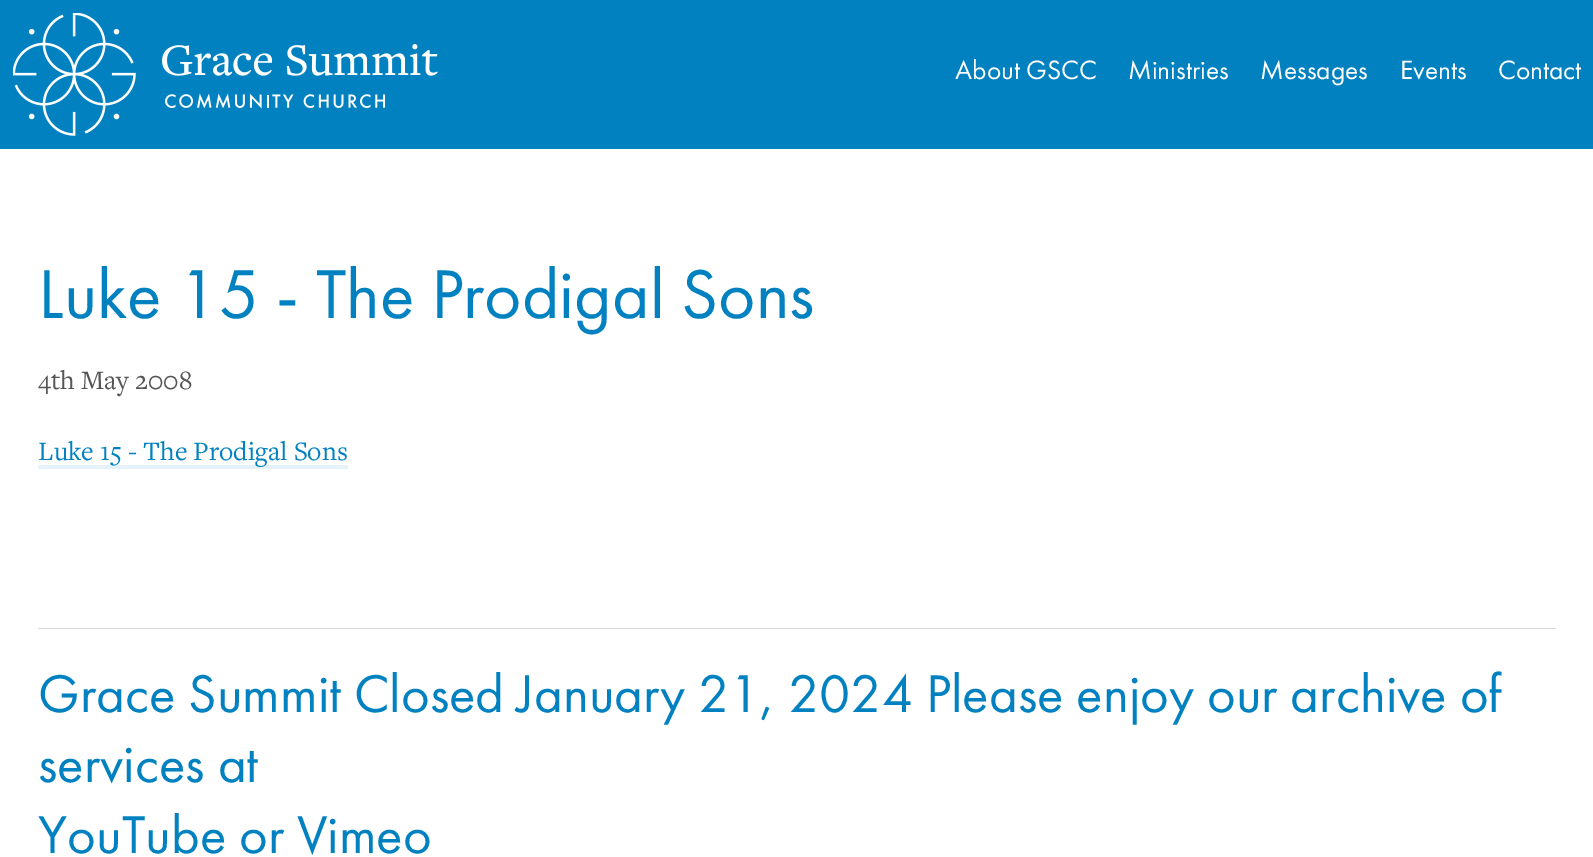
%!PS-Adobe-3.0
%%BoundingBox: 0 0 1593 857
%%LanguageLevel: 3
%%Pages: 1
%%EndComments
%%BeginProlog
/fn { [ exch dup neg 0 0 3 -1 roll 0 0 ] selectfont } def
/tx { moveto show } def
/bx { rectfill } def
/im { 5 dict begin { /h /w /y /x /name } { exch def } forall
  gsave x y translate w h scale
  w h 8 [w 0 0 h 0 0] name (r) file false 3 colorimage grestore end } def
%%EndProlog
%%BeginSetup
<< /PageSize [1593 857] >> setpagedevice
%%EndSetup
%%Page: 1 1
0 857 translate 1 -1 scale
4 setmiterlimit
1 setgray
0 0 1593 857 bx
0.004 0.506 0.753 setrgbcolor
0 0 1593 149 bx
(image0.raw) 13 13 425 123 im
/FuturaPT-Regular 27.5 fn
1 setgray
(About GSCC) 955 79 tx
(Ministries) 1128 79 tx
(Messages) 1260 79 tx
(Events) 1400 79 tx
(Contact) 1498 79 tx
/FuturaPT-Regular 71.5 fn
0.004 0.506 0.753 setrgbcolor
(Luke 15 - The Prodigal Sons) 38 318 tx
/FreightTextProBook-Regular 27.5 fn
0.333 setgray
(4th May 2008) 38 389 tx
0.902 0.949 0.976 setrgbcolor
38 465 310 4 bx
0.004 0.506 0.753 setrgbcolor
(Luke 15 - The Prodigal Sons) 38 460 tx
0.851 setgray
38 628 1518 1 bx
/FuturaPT-Regular 55 fn
0.004 0.506 0.753 setrgbcolor
(Grace Summit Closed January 21, 2024 Please enjoy our archive of) 38 712 tx
(services at) 38 782 tx
(YouTube or Vimeo) 38 853 tx
showpage
%%EOF
